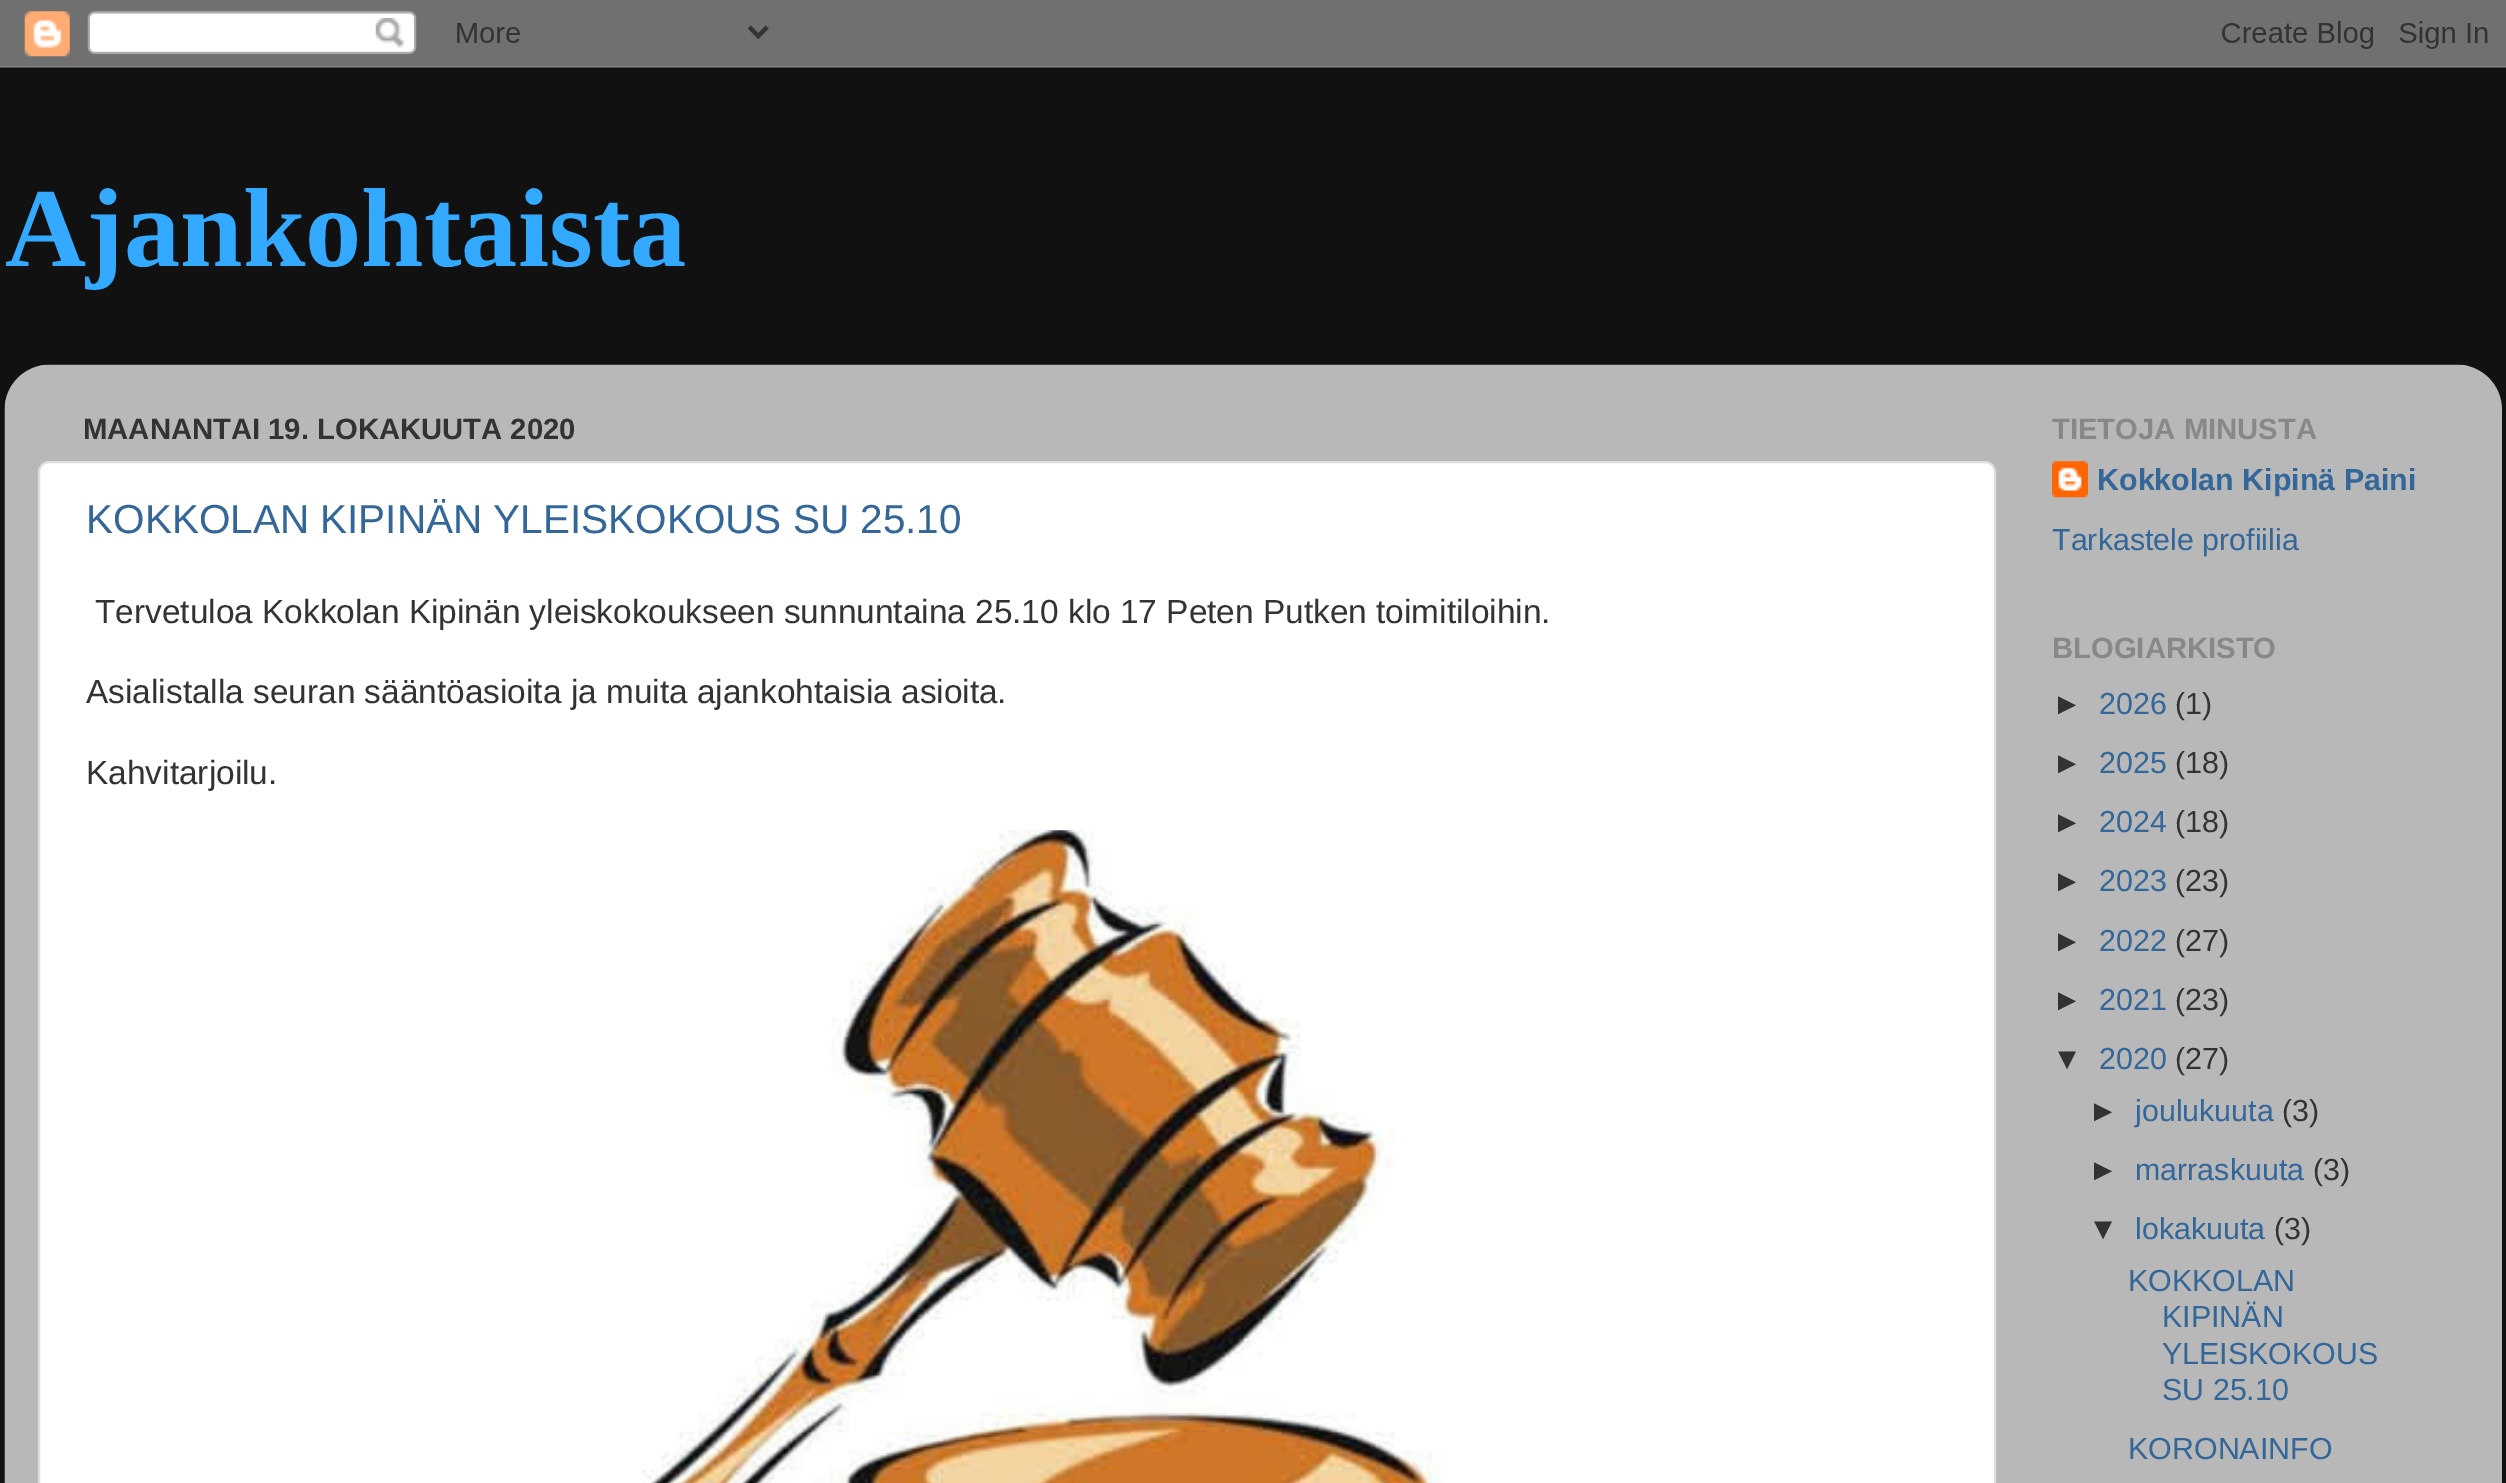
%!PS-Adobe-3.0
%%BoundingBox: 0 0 2506 1483
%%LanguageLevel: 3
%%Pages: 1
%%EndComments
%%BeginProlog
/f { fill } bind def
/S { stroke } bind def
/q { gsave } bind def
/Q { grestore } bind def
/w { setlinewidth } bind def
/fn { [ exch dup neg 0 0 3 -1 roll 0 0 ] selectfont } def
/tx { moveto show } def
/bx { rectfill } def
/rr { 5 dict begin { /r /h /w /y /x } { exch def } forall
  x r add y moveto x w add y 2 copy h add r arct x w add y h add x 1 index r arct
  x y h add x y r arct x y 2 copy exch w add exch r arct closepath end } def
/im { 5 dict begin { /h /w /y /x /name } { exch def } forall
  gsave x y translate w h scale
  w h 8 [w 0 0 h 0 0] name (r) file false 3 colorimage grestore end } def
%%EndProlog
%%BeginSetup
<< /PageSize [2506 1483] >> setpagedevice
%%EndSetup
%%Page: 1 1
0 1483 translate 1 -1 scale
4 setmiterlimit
0.067 setgray
0 0 2506 1483 bx
(image0.raw) 0 0 2506 68 im
/LiberationSerif-Bold 112.5 fn
0.2 0.667 1 setrgbcolor
(Ajankohtaista) 5 266 tx
(image1.raw) 4 364 2498 1119 im
/LiberationSans-Bold 29.25 fn
0.2 setgray
(MAANANTAI 19. LOKAKUUTA 2020) 83 439 tx
1 setgray
39 462 1956 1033 10 rr q f Q
0.867 setgray
2 w
S
/LiberationSans-Regular 40.5 fn
0.2 0.4 0.6 setrgbcolor
(KOKKOLAN KIPINÄN YLEISKOKOUS SU 25.10) 86 533 tx
/LiberationSans-Regular 33.4 fn
0.2 setgray
(Tervetuloa Kokkolan Kipinän yleiskokoukseen sunnuntaina 25.10 klo 17 Peten Putken toimitiloihin.) 95 623 tx
(Asialistalla seuran sääntöasioita ja muita ajankohtaisia asioita.) 86 703 tx
(Kahvitarjoilu.) 86 784 tx
(image2.raw) 641 830 801 653 im
/LiberationSans-Bold 29.25 fn
0.533 setgray
(TIETOJA MINUSTA) 2052 439 tx
(image3.raw) 2052 461 36 37 im
/LiberationSans-Bold 30.4 fn
0.2 0.4 0.6 setrgbcolor
(Kokkolan Kipinä Paini) 2097 490 tx
/LiberationSans-Regular 30.4 fn
(Tarkastele profiilia) 2052 550 tx
/LiberationSans-Bold 29.25 fn
0.533 setgray
(BLOGIARKISTO) 2052 658 tx
/LiberationSans-Regular 30.4 fn
0.2 setgray
(►) 2052 714 tx
0.2 0.4 0.6 setrgbcolor
(2026) 2099 714 tx
0.2 setgray
(\(1\)) 2175 714 tx
(►) 2052 773 tx
0.2 0.4 0.6 setrgbcolor
(2025) 2099 773 tx
0.2 setgray
(\(18\)) 2175 773 tx
(►) 2052 832 tx
0.2 0.4 0.6 setrgbcolor
(2024) 2099 832 tx
0.2 setgray
(\(18\)) 2175 832 tx
(►) 2052 891 tx
0.2 0.4 0.6 setrgbcolor
(2023) 2099 891 tx
0.2 setgray
(\(23\)) 2175 891 tx
(►) 2052 951 tx
0.2 0.4 0.6 setrgbcolor
(2022) 2099 951 tx
0.2 setgray
(\(27\)) 2175 951 tx
(►) 2052 1010 tx
0.2 0.4 0.6 setrgbcolor
(2021) 2099 1010 tx
0.2 setgray
(\(23\)) 2175 1010 tx
(▼) 2052 1069 tx
0.2 0.4 0.6 setrgbcolor
(2020) 2099 1069 tx
0.2 setgray
(\(27\)) 2175 1069 tx
(►) 2088 1121 tx
0.2 0.4 0.6 setrgbcolor
(joulukuuta) 2135 1121 tx
0.2 setgray
(\(3\)) 2282 1121 tx
(►) 2088 1180 tx
0.2 0.4 0.6 setrgbcolor
(marraskuuta) 2135 1180 tx
0.2 setgray
(\(3\)) 2313 1180 tx
(▼) 2088 1239 tx
0.2 0.4 0.6 setrgbcolor
(lokakuuta) 2135 1239 tx
0.2 setgray
(\(3\)) 2274 1239 tx
0.2 0.4 0.6 setrgbcolor
(KOKKOLAN) 2128 1291 tx
(KIPINÄN) 2162 1327 tx
(YLEISKOKOUS) 2162 1364 tx
(SU 25.10) 2162 1400 tx
(KORONAINFO) 2128 1459 tx
showpage
%%EOF
